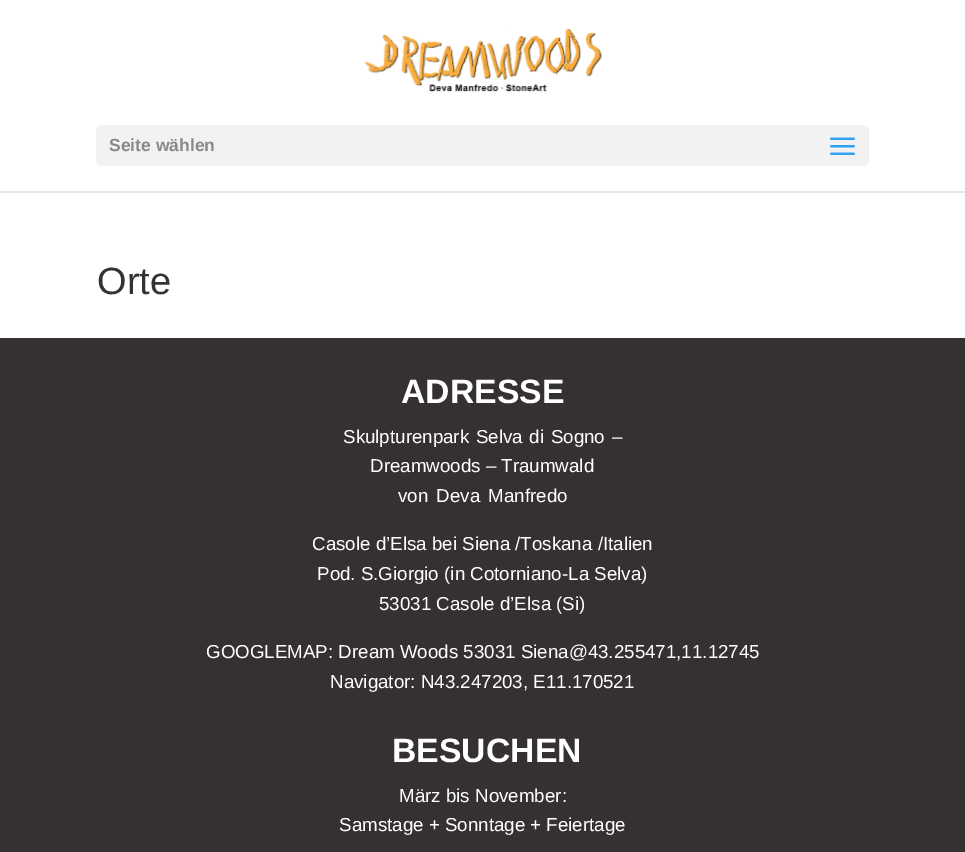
%!PS-Adobe-3.0
%%BoundingBox: 0 0 965 852
%%LanguageLevel: 3
%%Pages: 1
%%EndComments
%%BeginProlog
/m { moveto } bind def
/f { fill } bind def
/fn { [ exch dup neg 0 0 3 -1 roll 0 0 ] selectfont } def
/tx { moveto show } def
/bx { rectfill } def
/rr { 5 dict begin { /r /h /w /y /x } { exch def } forall
  x r add y moveto x w add y 2 copy h add r arct x w add y h add x 1 index r arct
  x y h add x y r arct x y 2 copy exch w add exch r arct closepath end } def
/im { 5 dict begin { /h /w /y /x /name } { exch def } forall
  gsave x y translate w h scale
  w h 8 [w 0 0 h 0 0] name (r) file false 3 colorimage grestore end } def
%%EndProlog
%%BeginSetup
<< /PageSize [965 852] >> setpagedevice
%%EndSetup
%%Page: 1 1
0 852 translate 1 -1 scale
4 setmiterlimit
1 setgray
0 0 965 852 bx
0.902 setgray
0 191 965 2 bx
(image0.raw) 364 28 239 64 im
0.949 setgray
96 125 773 41 6 rr f
/LiberationSans-Bold 17.5 fn
0.533 setgray
(Seite wählen) 109 151 tx
(image1.raw) 830 137 25 18 im
/LiberationSans-Regular 38 fn
0.2 setgray
(Orte) 97 294 tx
0.208 0.192 0.188 setrgbcolor
0 338 965 514 bx
/LiberationSans-Bold 33.75 fn
1 setgray
(ADRESSE) 401 403 tx
/LiberationSans-Regular 18.75 fn
343 443 m 1.5 0 32 (Skulpturenpark Selva di Sogno –) widthshow
(Dreamwoods – Traumwald) 370 472 tx
398 502 m 3 0 32 (von Deva Manfredo) widthshow
(Casole d’Elsa bei Siena /Toskana /Italien) 312 550 tx
(Pod. S.Giorgio \(in Cotorniano-La Selva\)) 317 580 tx
(53031 Casole d’Elsa \(Si\)) 379 610 tx
(GOOGLEMAP: Dream Woods 53031 Siena@43.255471,11.12745) 206 658 tx
(Navigator: N43.247203, E11.170521) 330 688 tx
/LiberationSans-Bold 33.75 fn
(BESUCHEN) 392 762 tx
/LiberationSans-Regular 18.75 fn
(März bis November:) 399 802 tx
(Samstage + Sonntage + Feiertage) 339 831 tx
showpage
%%EOF
